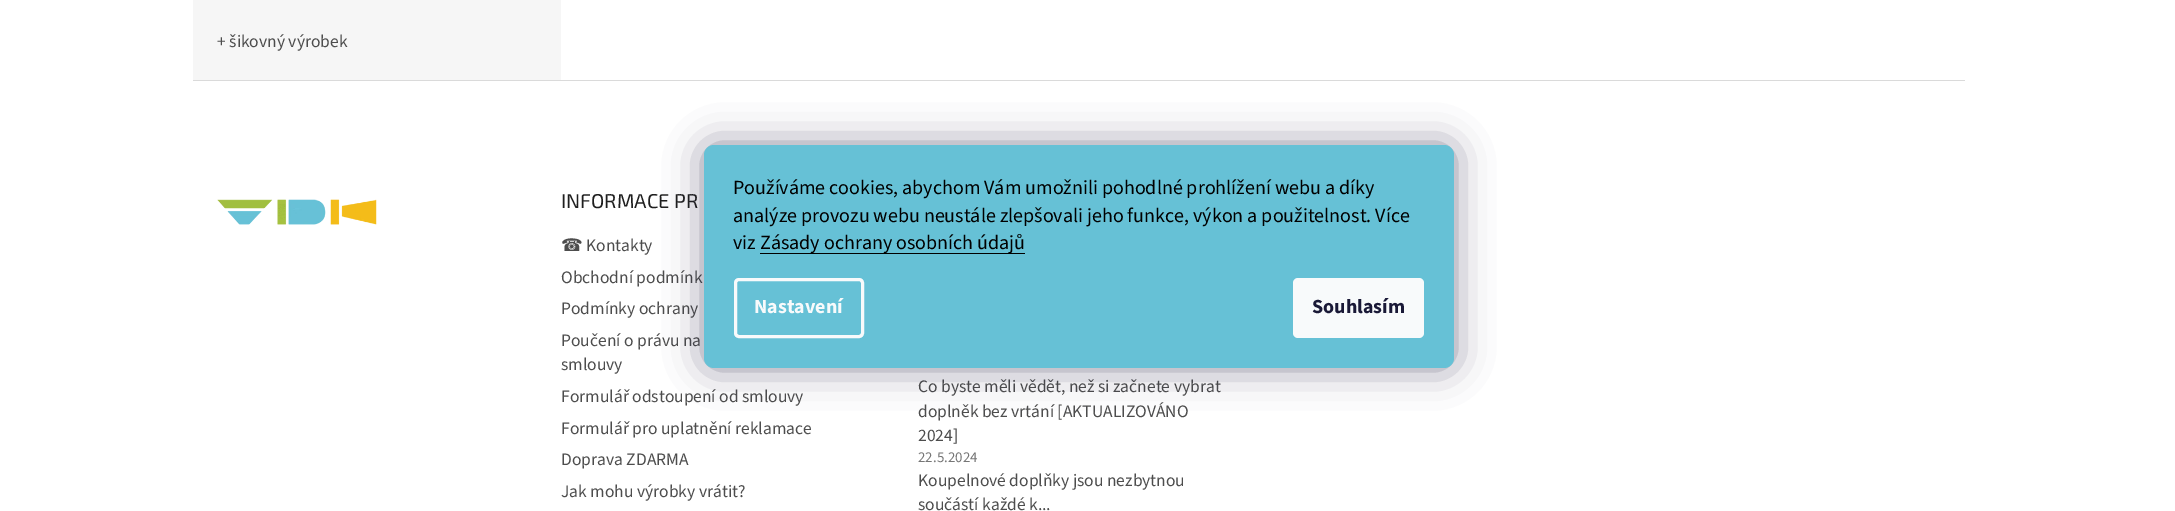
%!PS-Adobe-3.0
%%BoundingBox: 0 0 2175 511
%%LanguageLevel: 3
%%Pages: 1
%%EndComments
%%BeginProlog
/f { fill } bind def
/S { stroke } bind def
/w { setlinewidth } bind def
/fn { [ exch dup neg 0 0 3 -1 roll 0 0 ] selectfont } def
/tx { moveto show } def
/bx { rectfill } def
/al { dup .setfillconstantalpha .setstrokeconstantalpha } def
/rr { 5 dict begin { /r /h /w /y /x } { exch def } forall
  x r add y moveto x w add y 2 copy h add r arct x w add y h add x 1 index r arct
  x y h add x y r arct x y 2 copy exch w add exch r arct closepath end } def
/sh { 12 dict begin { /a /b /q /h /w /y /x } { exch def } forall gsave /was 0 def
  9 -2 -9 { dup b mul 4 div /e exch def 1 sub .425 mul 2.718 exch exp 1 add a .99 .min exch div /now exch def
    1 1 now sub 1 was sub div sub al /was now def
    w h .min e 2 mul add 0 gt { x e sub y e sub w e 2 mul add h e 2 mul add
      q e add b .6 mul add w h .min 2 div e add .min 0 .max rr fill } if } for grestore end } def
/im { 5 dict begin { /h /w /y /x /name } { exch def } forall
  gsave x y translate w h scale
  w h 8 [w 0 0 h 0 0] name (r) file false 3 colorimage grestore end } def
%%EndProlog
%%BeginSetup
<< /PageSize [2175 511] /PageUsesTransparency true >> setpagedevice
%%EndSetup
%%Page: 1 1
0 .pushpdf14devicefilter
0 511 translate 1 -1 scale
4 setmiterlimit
1 setgray
0 0 2175 511 bx
0.965 setgray
193 0 368 80 bx
/SourceSans3-Regular 17.5 fn
0.302 setgray
(+ šikovný výrobek) 217 47 tx
(image0.raw) 217 199 160 26 im
0.855 setgray
193 80 1772 1 bx
/Exo2-Regular 20 fn
0.122 setgray
(INFORMACE PR) 561 208 tx
/DejaVuSans-Regular 17.5 fn
0.302 setgray
(☎) 561 251 tx
/SourceSans3-Regular 17.5 fn
(Kontakty) 586 251 tx
(Obchodní podmínk) 561 283 tx
(Podmínky ochrany) 561 314 tx
(Poučení o právu na) 561 346 tx
(smlouvy) 561 370 tx
(Formulář odstoupení od smlouvy) 561 402 tx
(Formulář pro uplatnění reklamace) 561 434 tx
(Doprava ZDARMA) 561 465 tx
(Jak mohu výrobky vrátit?) 561 497 tx
(Co byste měli vědět, než si začnete vybrat) 918 392 tx
(doplněk bez vrtání [AKTUALIZOVÁNO) 918 417 tx
(2024]) 918 441 tx
/SourceSans3-Regular 15 fn
0.463 setgray
(22.5.2024) 918 462 tx
/SourceSans3-Regular 17.5 fn
0.302 setgray
(Koupelnové doplňky jsou nezbytnou) 918 486 tx
(součástí každé k...) 918 510 tx
0.106 0.098 0.224 setrgbcolor
704 145 750 223 10 19 0.5 sh
0.4 0.757 0.839 setrgbcolor
704 145 750 223 10 rr f
/SourceSans3-Regular 20 fn
0 setgray
(Používáme cookies, abychom Vám umožnili pohodlné prohlížení webu a díky) 733 194 tx
(analýze provozu webu neustále zlepšovali jeho funkce, výkon a použitelnost. Více) 733 222 tx
(viz) 733 249 tx
760 253 265 1 bx
(Zásady ochrany osobních údajů) 760 249 tx
0.973 0.98 0.984 setrgbcolor
3 w
735.5 279.5 127 57 3.5 rr S
/SourceSans3-Bold 20 fn
(Nastavení) 754 313 tx
1293 278 131 60 5 rr f
0.102 0.098 0.216 setrgbcolor
(Souhlasím) 1312 313 tx
.poppdf14devicefilter showpage
%%EOF
